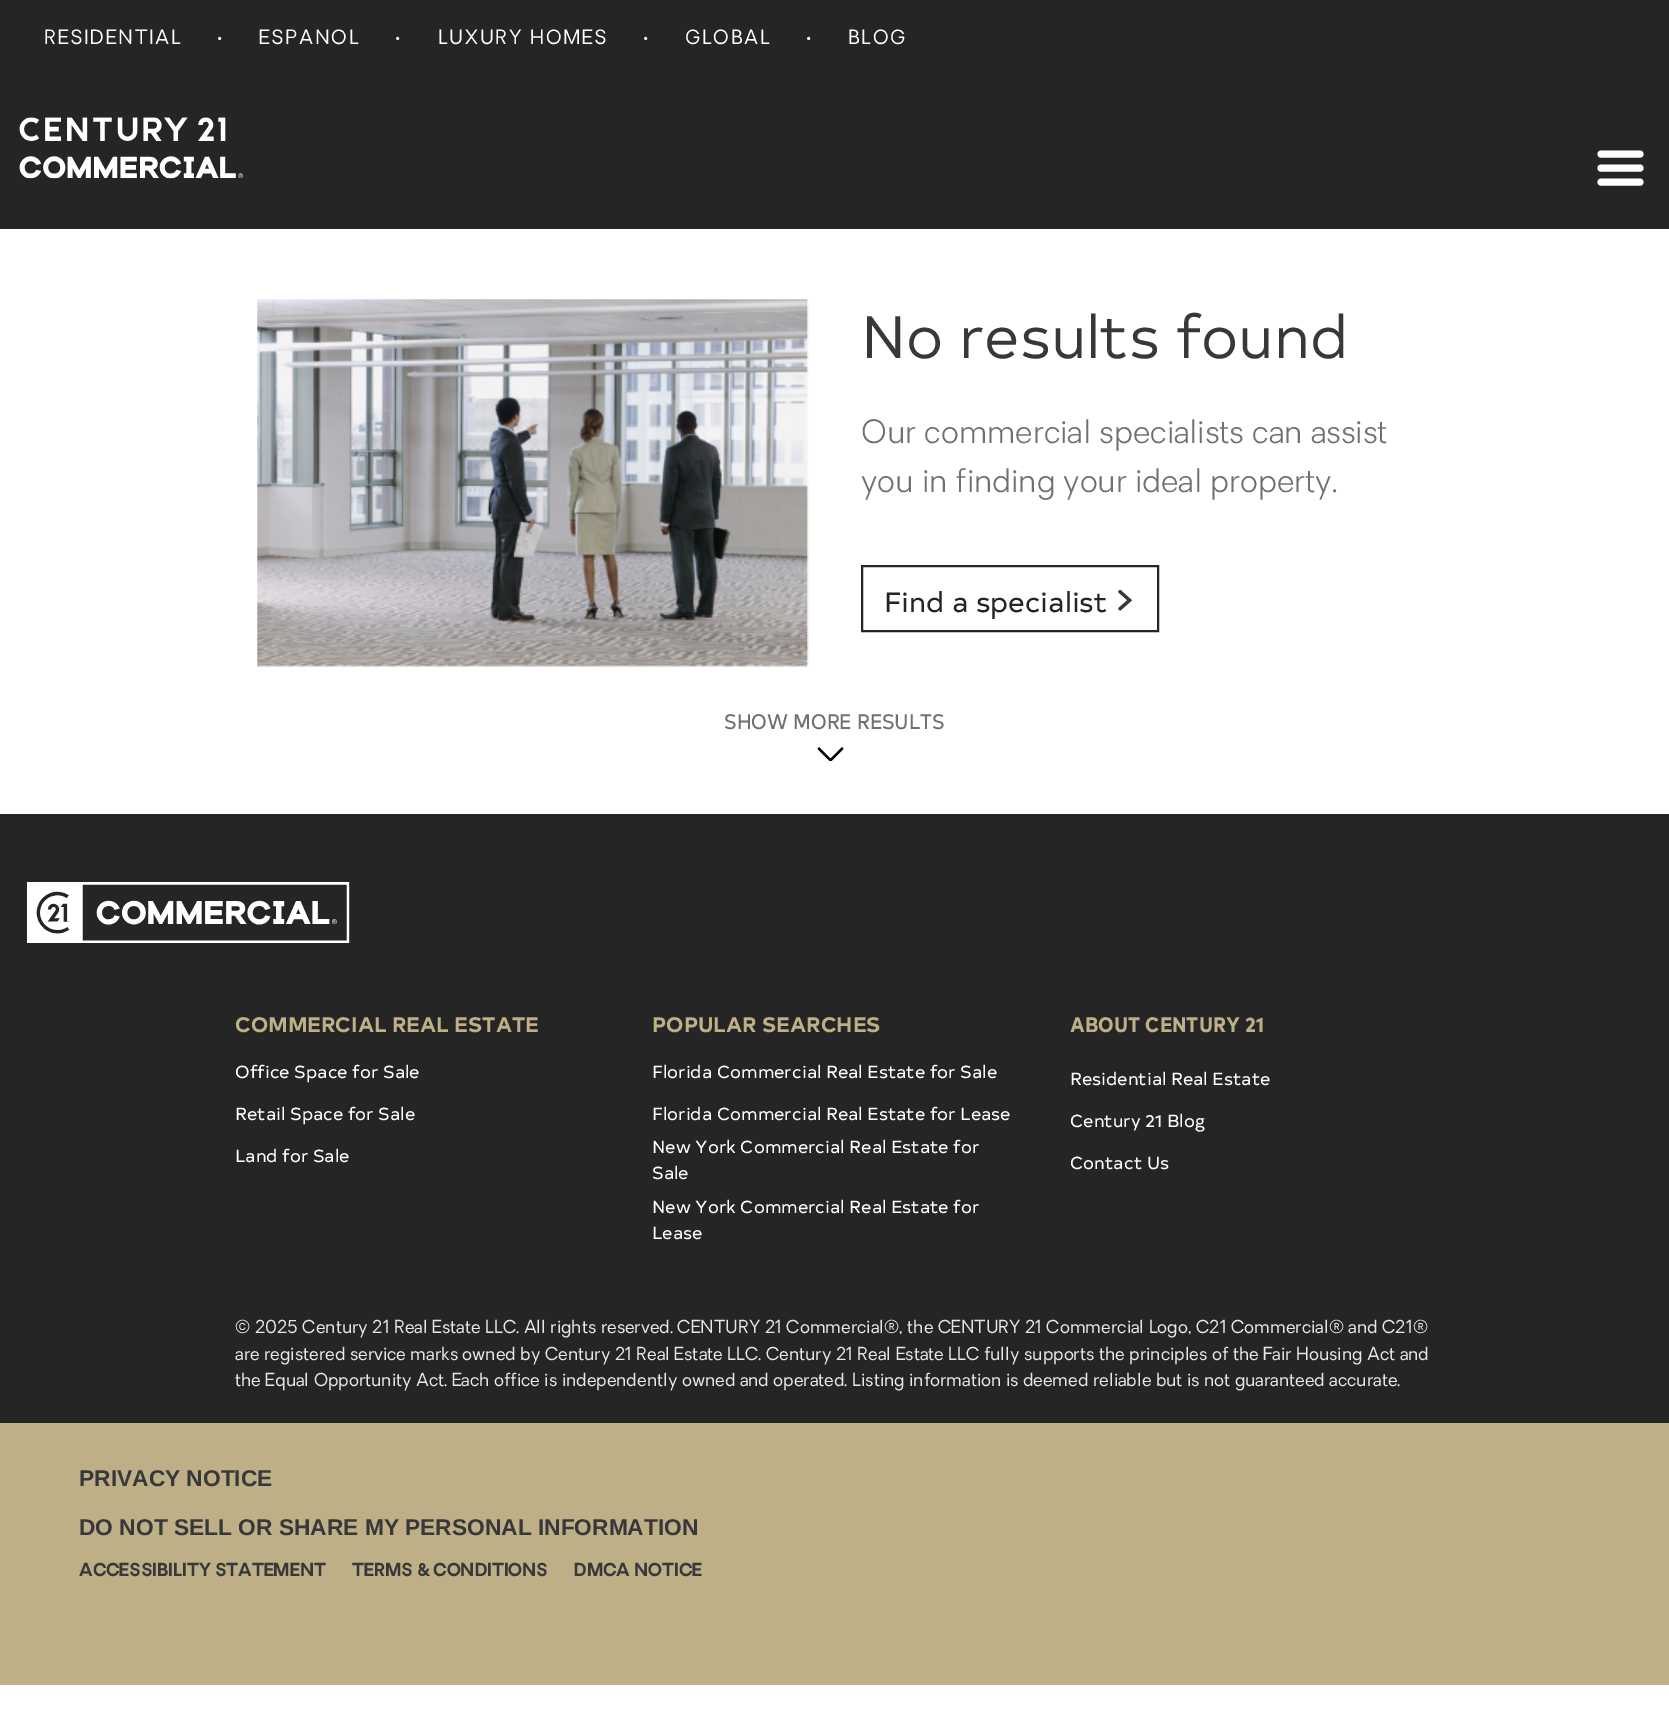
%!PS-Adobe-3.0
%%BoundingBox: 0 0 1669 1711
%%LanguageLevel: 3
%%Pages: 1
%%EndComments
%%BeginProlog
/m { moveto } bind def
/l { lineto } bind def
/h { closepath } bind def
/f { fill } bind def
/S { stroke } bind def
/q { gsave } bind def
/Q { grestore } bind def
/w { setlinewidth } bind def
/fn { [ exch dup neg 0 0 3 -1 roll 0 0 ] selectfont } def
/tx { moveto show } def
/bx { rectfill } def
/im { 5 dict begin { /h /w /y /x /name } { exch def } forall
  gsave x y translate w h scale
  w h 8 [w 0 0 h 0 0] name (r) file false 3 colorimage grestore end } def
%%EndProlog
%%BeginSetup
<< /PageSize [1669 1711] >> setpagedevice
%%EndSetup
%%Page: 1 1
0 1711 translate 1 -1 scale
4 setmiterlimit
1 setgray
0 0 1669 1711 bx
0.145 0.145 0.149 setrgbcolor
0 0 1669 229 bx
/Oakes-Regular 19.25 fn
1 setgray
44 44 m 1.75 0 (RESIDENTIAL) ashow
/Oakes-Regular 35 fn
215 51 m 1.75 0 (·) ashow
/Oakes-Regular 19.25 fn
259 44 m 1.75 0 (ESPANOL) ashow
/Oakes-Regular 35 fn
393 51 m 1.75 0 (·) ashow
/Oakes-Regular 19.25 fn
438 44 m 1.75 0 (LUXURY HOMES) ashow
/Oakes-Regular 35 fn
641 51 m 1.75 0 (·) ashow
/Oakes-Regular 19.25 fn
685 44 m 1.75 0 (GLOBAL) ashow
/Oakes-Regular 35 fn
804 51 m 1.75 0 (·) ashow
/Oakes-Regular 19.25 fn
848 44 m 1.75 0 (BLOG) ashow
(image0.raw) 19 117 224 62 im
7 w
1 setlinecap
1601 154 m 1640 154 l 1601 168 m 1640 168 l 1601 182 m 1640 182 l S
(image1.raw) 257 299 552 368 im
/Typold-Regular 59.5 fn
0.22 0.22 0.227 setrgbcolor
(No results found) 861 358 tx
/Oakes-Light 31.5 fn
0.439 setgray
(Our commercial specialists can assist) 861 443 tx
(you in finding your ideal property.) 861 492 tx
0.145 0.145 0.149 setrgbcolor
2 w
0 setlinecap
862 566 296 65 rectstroke
/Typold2-Regular 28 fn
(Find a specialist) 884 612 tx
(image2.raw) 1118 589 15 22 im
/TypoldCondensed-Regular 21 fn
0.439 setgray
(SHOW MORE RESULTS) 724 729 tx
q
817 747 27 14 rectclip
0 setgray
830.5 762 m 817.5 749 l 819 747 l 830.5 758.5 l 842 747 l 843.5 749 l h f
Q
0.145 0.145 0.149 setrgbcolor
0 814 1669 609 bx
(image3.raw) 26 882 324 61 im
/Typold-Bold 21 fn
0.745 0.686 0.529 setrgbcolor
(COMMERCIAL REAL ESTATE) 235 1032 tx
/Typold2-Regular 17.5 fn
1 setgray
(Office Space for Sale) 235 1078 tx
(Retail Space for Sale) 235 1120 tx
(Land for Sale) 235 1162 tx
/Typold-Bold 21 fn
0.745 0.686 0.529 setrgbcolor
(POPULAR SEARCHES) 652 1032 tx
/Typold2-Regular 17.5 fn
1 setgray
(Florida Commercial Real Estate for Sale) 652 1078 tx
(Florida Commercial Real Estate for Lease) 652 1120 tx
(New York Commercial Real Estate for) 652 1153 tx
(Sale) 652 1179 tx
(New York Commercial Real Estate for) 652 1213 tx
(Lease) 652 1239 tx
/TypoldCondensed-Bold 21 fn
0.745 0.686 0.529 setrgbcolor
(ABOUT CENTURY 21) 1070 1032 tx
/Typold2-Regular 17.5 fn
1 setgray
(Residential Real Estate) 1070 1085 tx
(Century 21 Blog) 1070 1127 tx
(Contact Us) 1070 1169 tx
/Oakes-Regular 17.5 fn
0.902 0.906 0.91 setrgbcolor
(© 2025 Century 21 Real Estate LLC. All rights reserved. CENTURY 21 Commercial®, the CENTURY 21 Commercial Logo, C21 Commercial® and C21®) 235 1333 tx
(are registered service marks owned by Century 21 Real Estate LLC. Century 21 Real Estate LLC fully supports the principles of the Fair Housing Act and) 235 1360 tx
(the Equal Opportunity Act. Each office is independently owned and operated. Listing information is deemed reliable but is not guaranteed accurate.) 235 1386 tx
0.745 0.686 0.529 setrgbcolor
0 1423 1669 262 bx
/LiberationSans-Bold 22.75 fn
0.22 0.22 0.227 setrgbcolor
(PRIVACY NOTICE) 79 1486 tx
(DO NOT SELL OR SHARE MY PERSONAL INFORMATION) 79 1535 tx
/Oakes-Bold 17.5 fn
(ACCESSIBILITY STATEMENT) 79 1576 tx
(TERMS & CONDITIONS) 352 1576 tx
(DMCA NOTICE) 574 1576 tx
showpage
%%EOF
